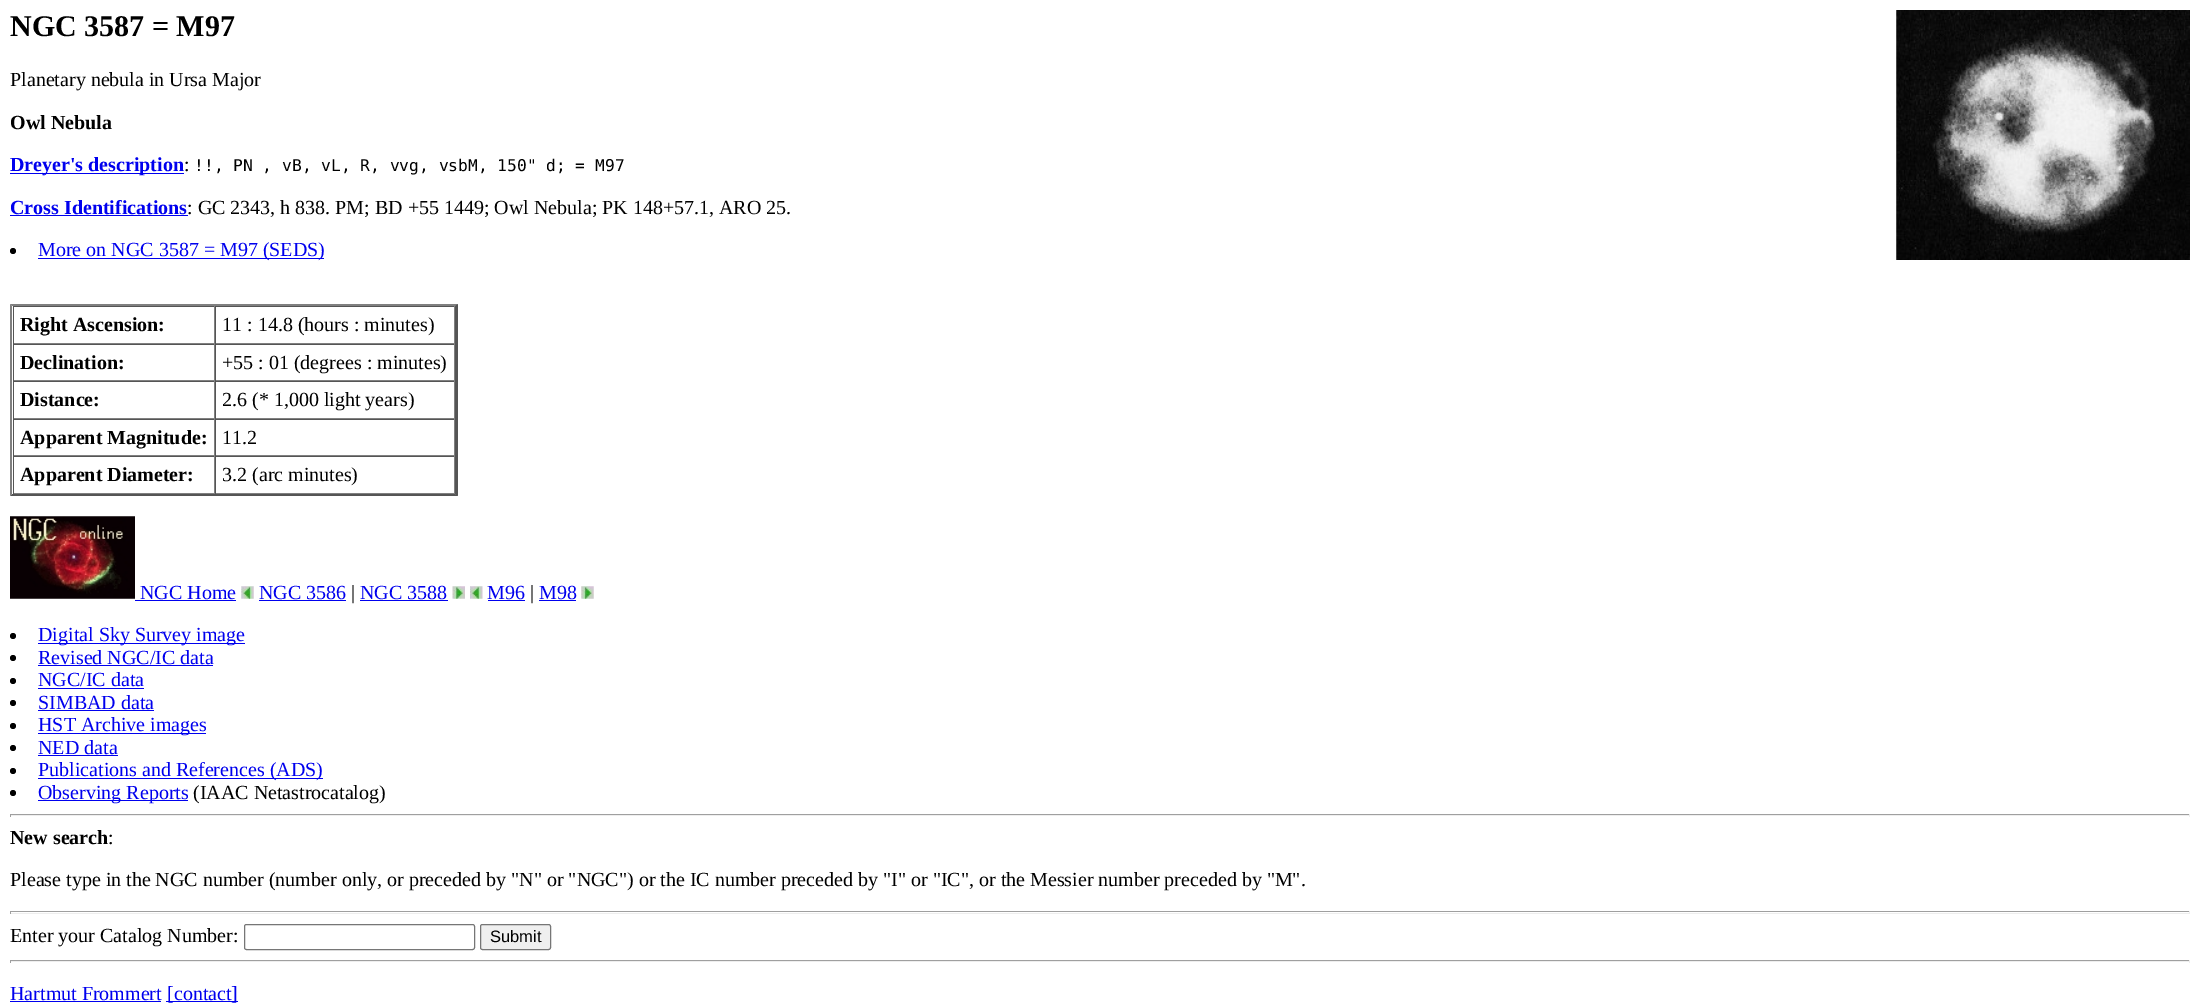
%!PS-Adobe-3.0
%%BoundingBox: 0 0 2200 1007
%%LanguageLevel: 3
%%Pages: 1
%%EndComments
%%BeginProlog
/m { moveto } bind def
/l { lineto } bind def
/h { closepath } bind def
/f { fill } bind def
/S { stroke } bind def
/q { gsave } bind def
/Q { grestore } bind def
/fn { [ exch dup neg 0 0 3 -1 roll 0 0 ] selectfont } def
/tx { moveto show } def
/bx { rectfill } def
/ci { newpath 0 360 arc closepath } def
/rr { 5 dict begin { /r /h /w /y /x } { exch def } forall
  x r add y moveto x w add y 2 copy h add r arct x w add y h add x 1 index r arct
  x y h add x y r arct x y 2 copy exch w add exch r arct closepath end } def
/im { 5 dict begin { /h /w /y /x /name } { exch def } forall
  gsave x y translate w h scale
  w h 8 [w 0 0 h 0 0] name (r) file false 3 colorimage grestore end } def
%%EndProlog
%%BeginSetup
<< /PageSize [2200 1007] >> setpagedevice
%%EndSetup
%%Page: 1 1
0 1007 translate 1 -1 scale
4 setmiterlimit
1 setgray
0 0 2200 1007 bx
/LiberationSerif-Bold 30 fn
0 setgray
(NGC 3587 = M97) 10 36 tx
(image0.raw) 1896 10 294 250 im
/LiberationSerif-Regular 20 fn
(Planetary nebula in Ursa Major) 10 86 tx
/LiberationSerif-Bold 20 fn
(Owl Nebula) 10 129 tx
0 0 0.933 setrgbcolor
10 173 174 1 bx
(Dreyer's description) 10 171 tx
/LiberationSerif-Regular 20 fn
0 setgray
(:) 184 171 tx
/DejaVuSansMono-Regular 16.25 fn
(!!, PN , vB, vL, R, vvg, vsbM, 150" d; = M97) 194 171 tx
/LiberationSerif-Bold 20 fn
0 0 0.933 setrgbcolor
(Cross Identifications) 10 214 tx
10 215 178 1 bx
/LiberationSerif-Regular 20 fn
0 setgray
(: GC 2343, h 838. PM; BD +55 1449; Owl Nebula; PK 148+57.1, ARO 25.) 187 214 tx
13 251 3 ci f
0 0 0.933 setrgbcolor
38 258 286 1 bx
(More on NGC 3587 = M97 \(SEDS\)) 38 256 tx
0.502 setgray
10 304 m 458 304 l 455 306 l 12 306 l h f
0.333 setgray
458 304 m 458 496 l 455 494 l 455 306 l h f
458 496 m 10 496 l 12 494 l 455 494 l h f
0.502 setgray
10 496 m 10 304 l 12 306 l 12 494 l h f
0.333 setgray
13 306 442 1 bx
0.502 setgray
214 306 1 38 bx
13 343 202 1 bx
0.333 setgray
13 306 1 38 bx
/LiberationSerif-Bold 20 fn
0 setgray
(Right Ascension:) 20 331 tx
0.502 setgray
454 306 1 38 bx
215 343 240 1 bx
0.333 setgray
215 306 1 38 bx
/LiberationSerif-Regular 20 fn
0 setgray
(11 : 14.8 \(hours : minutes\)) 222 331 tx
0.333 setgray
13 344 442 1 bx
0.502 setgray
214 344 1 37 bx
13 380 202 1 bx
0.333 setgray
13 344 1 37 bx
/LiberationSerif-Bold 20 fn
0 setgray
(Declination:) 20 369 tx
0.502 setgray
454 344 1 37 bx
215 380 240 1 bx
0.333 setgray
215 344 1 37 bx
/LiberationSerif-Regular 20 fn
0 setgray
(+55 : 01 \(degrees : minutes\)) 222 369 tx
0.333 setgray
13 381 442 1 bx
0.502 setgray
214 381 1 38 bx
13 418 202 1 bx
0.333 setgray
13 381 1 38 bx
/LiberationSerif-Bold 20 fn
0 setgray
(Distance:) 20 406 tx
0.502 setgray
454 381 1 38 bx
215 418 240 1 bx
0.333 setgray
215 381 1 38 bx
/LiberationSerif-Regular 20 fn
0 setgray
(2.6 \(* 1,000 light years\)) 222 406 tx
0.333 setgray
13 419 442 1 bx
0.502 setgray
214 419 1 37 bx
13 455 202 1 bx
0.333 setgray
13 419 1 37 bx
/LiberationSerif-Bold 20 fn
0 setgray
(Apparent Magnitude:) 20 444 tx
0.502 setgray
454 419 1 37 bx
215 455 240 1 bx
0.333 setgray
215 419 1 37 bx
/LiberationSerif-Regular 20 fn
0 setgray
(11.2) 222 444 tx
0.333 setgray
13 456 442 1 bx
0.502 setgray
214 456 1 38 bx
13 493 202 1 bx
0.333 setgray
13 456 1 38 bx
/LiberationSerif-Bold 20 fn
0 setgray
(Apparent Diameter:) 20 481 tx
0.502 setgray
454 456 1 38 bx
215 493 240 1 bx
0.333 setgray
215 456 1 38 bx
/LiberationSerif-Regular 20 fn
0 setgray
(3.2 \(arc minutes\)) 222 481 tx
(image1.raw) 10 516 125 83 im
0 0 0.933 setrgbcolor
(NGC Home) 140 599 tx
135 600 101 1 bx
(image2.raw) 241 586 13 13 im
(NGC 3586) 259 599 tx
259 600 87 1 bx
0 setgray
(|) 351 599 tx
0 0 0.933 setrgbcolor
(NGC 3588) 360 599 tx
360 600 88 1 bx
(image3.raw) 452 586 13 13 im
(image4.raw) 470 586 13 13 im
(M96) 487 599 tx
488 600 37 1 bx
0 setgray
(|) 530 599 tx
0 0 0.933 setrgbcolor
(M98) 539 599 tx
539 600 37 1 bx
(image5.raw) 581 586 13 13 im
0 setgray
13 636 3 ci f
0 0 0.933 setrgbcolor
38 643 207 1 bx
(Digital Sky Survey image) 38 641 tx
0 setgray
13 658 3 ci f
0 0 0.933 setrgbcolor
(Revised NGC/IC data) 38 664 tx
38 665 175 1 bx
0 setgray
13 681 3 ci f
0 0 0.933 setrgbcolor
(NGC/IC data) 38 686 tx
38 688 106 1 bx
0 setgray
13 703 3 ci f
0 0 0.933 setrgbcolor
(SIMBAD data) 38 709 tx
38 710 116 1 bx
0 setgray
13 726 3 ci f
0 0 0.933 setrgbcolor
38 733 168 1 bx
(HST Archive images) 38 731 tx
0 setgray
13 748 3 ci f
0 0 0.933 setrgbcolor
(NED data) 38 754 tx
38 755 80 1 bx
0 setgray
13 771 3 ci f
0 0 0.933 setrgbcolor
38 778 285 1 bx
(Publications and References \(ADS\)) 38 776 tx
0 setgray
13 793 3 ci f
0 0 0.933 setrgbcolor
38 800 150 1 bx
(Observing Reports) 38 799 tx
0 setgray
(\(IAAC Netastrocatalog\)) 193 799 tx
0.624 setgray
10 814 2180 1 bx
0.933 setgray
2189 814 1 3 bx
10 815 2180 1 bx
0.624 setgray
10 814 1 3 bx
/LiberationSerif-Bold 20 fn
0 setgray
(New search) 10 844 tx
/LiberationSerif-Regular 20 fn
(:) 108 844 tx
(Please type in the NGC number \(number only, or preceded by "N" or "NGC"\) or the IC number preceded by "I" or "IC", or the Messier number preceded by "M".) 10 886 tx
0.624 setgray
10 911 2180 1 bx
0.933 setgray
2189 911 1 3 bx
10 913 2180 1 bx
0.624 setgray
10 911 1 3 bx
0 setgray
(Enter your Catalog Number:) 10 942 tx
0.463 setgray
244.5 924.5 230 25 2 rr S
0.937 setgray
480.5 924.5 70 25 2 rr q f Q
0.463 setgray
S
/LiberationSans-Regular 16.5 fn
0 setgray
(Submit) 490 942 tx
0.624 setgray
10 960 2180 1 bx
0.933 setgray
2189 960 1 3 bx
10 961 2180 1 bx
0.624 setgray
10 960 1 3 bx
/LiberationSerif-Regular 20 fn
0 0 0.933 setrgbcolor
(Hartmut Frommert) 10 1000 tx
10 1001 151 1 bx
166 1001 72 1 bx
([contact]) 167 1000 tx
showpage
%%EOF
